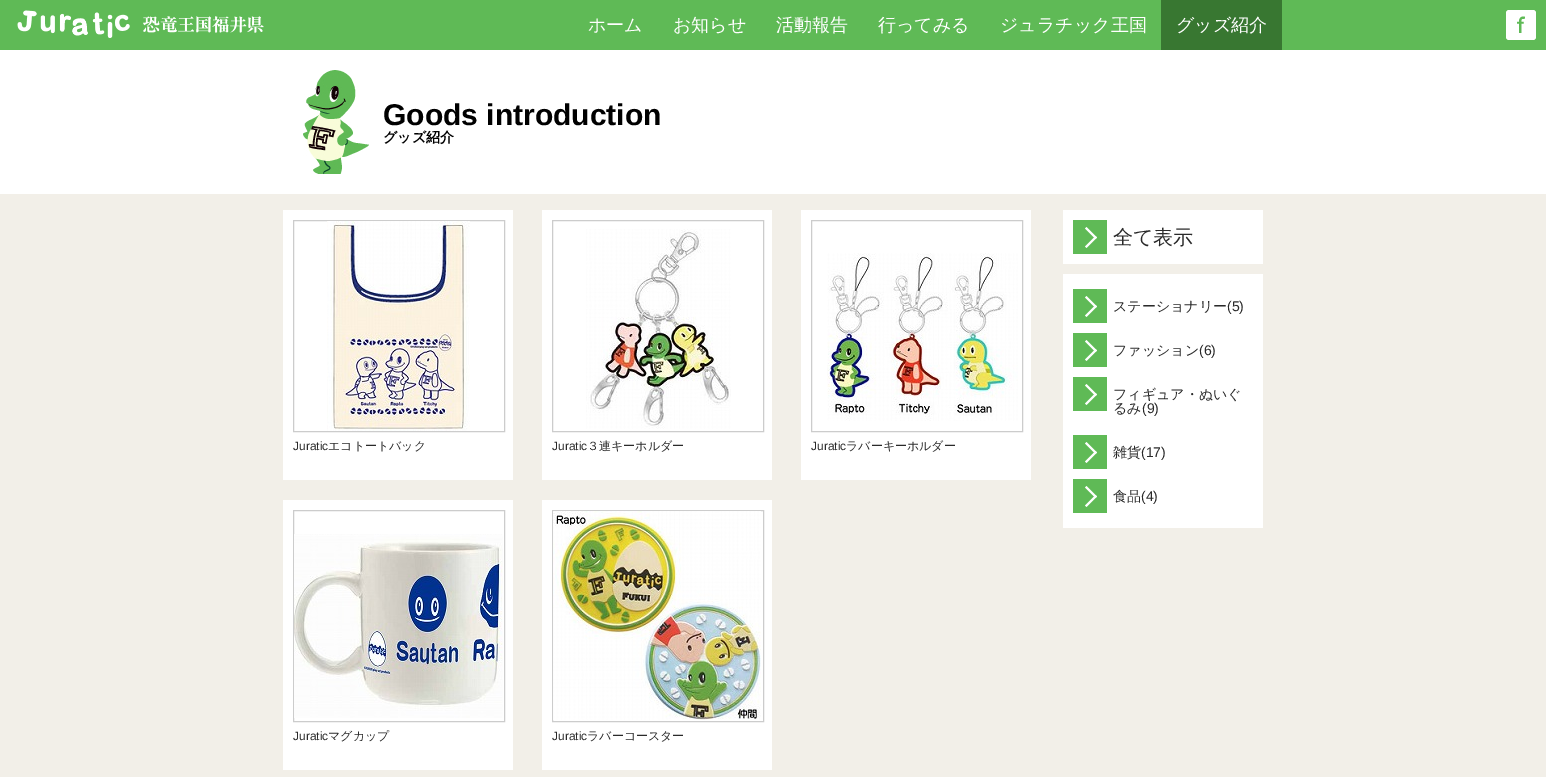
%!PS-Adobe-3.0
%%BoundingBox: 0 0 1546 777
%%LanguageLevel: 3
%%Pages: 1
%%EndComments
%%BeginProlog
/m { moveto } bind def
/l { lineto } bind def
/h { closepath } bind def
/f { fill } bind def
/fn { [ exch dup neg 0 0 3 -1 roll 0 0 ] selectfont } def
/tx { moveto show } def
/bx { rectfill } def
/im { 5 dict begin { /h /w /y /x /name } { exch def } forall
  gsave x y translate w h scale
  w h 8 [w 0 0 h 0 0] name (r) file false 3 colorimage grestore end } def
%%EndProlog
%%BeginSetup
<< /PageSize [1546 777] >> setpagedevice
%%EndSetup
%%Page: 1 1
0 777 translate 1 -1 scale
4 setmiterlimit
0.949 0.937 0.91 setrgbcolor
0 0 1546 777 bx
0.373 0.729 0.337 setrgbcolor
0 0 1546 50 bx
(image0.raw) 17 10 247 28 im
/WenQuanYiZenHei-Medium 18 fn
1 setgray
(ホーム) 588 31 tx
(お知らせ) 673 31 tx
(活動報告) 776 31 tx
(行ってみる) 878 31 tx
(ジュラチック王国) 1000 31 tx
0.22 0.467 0.192 setrgbcolor
1161 0 121 50 bx
1 setgray
(グッズ紹介) 1176 31 tx
(image1.raw) 1506 10 30 30 im
0 50 1546 144 bx
(image2.raw) 303 70 66 104 im
/LiberationSans-Bold 30 fn
0 setgray
(Goods introduction) 383 125 tx
/WenQuanYiZenHei-Bold 14 fn
(グッズ紹介) 383 142 tx
1 setgray
1063 210 200 54 bx
0.373 0.729 0.337 setrgbcolor
1073 220 34 34 bx
1 setgray
1085 228.5 m 1086.5 227 l 1097 237.5 l 1095.5 239 l h f
1085 246.5 m 1095.5 236 l 1097 237.5 l 1086.5 248 l h f
/WenQuanYiZenHei-Medium 20 fn
0.165 setgray
(全て表示) 1113 244 tx
1 setgray
1063 274 200 254 bx
0.373 0.729 0.337 setrgbcolor
1073 289 34 34 bx
1 setgray
1085 297.5 m 1086.5 296 l 1097 306.5 l 1095.5 308 l h f
1085 315.5 m 1095.5 305 l 1097 306.5 l 1086.5 317 l h f
/WenQuanYiZenHei-Medium 14 fn
0.165 setgray
(ステーショナリー) 1113 311 tx
/LiberationSans-Regular 14 fn
(\(5\)) 1227 311 tx
0.373 0.729 0.337 setrgbcolor
1073 333 34 34 bx
1 setgray
1085 341.5 m 1086.5 340 l 1097 350.5 l 1095.5 352 l h f
1085 359.5 m 1095.5 349 l 1097 350.5 l 1086.5 361 l h f
/WenQuanYiZenHei-Medium 14 fn
0.165 setgray
(ファッション) 1113 355 tx
/LiberationSans-Regular 14 fn
(\(6\)) 1199 355 tx
0.373 0.729 0.337 setrgbcolor
1073 377 34 34 bx
1 setgray
1085 385.5 m 1086.5 384 l 1097 394.5 l 1095.5 396 l h f
1085 403.5 m 1095.5 393 l 1097 394.5 l 1086.5 405 l h f
/WenQuanYiZenHei-Medium 14 fn
0.165 setgray
(フィギュア・ぬいぐ) 1113 399 tx
(るみ) 1113 413 tx
/LiberationSans-Regular 14 fn
(\(9\)) 1142 413 tx
0.373 0.729 0.337 setrgbcolor
1073 435 34 34 bx
1 setgray
1085 443.5 m 1086.5 442 l 1097 452.5 l 1095.5 454 l h f
1085 461.5 m 1095.5 451 l 1097 452.5 l 1086.5 463 l h f
/WenQuanYiZenHei-Medium 14 fn
0.165 setgray
(雑貨) 1113 457 tx
/LiberationSans-Regular 14 fn
(\(17\)) 1141 457 tx
0.373 0.729 0.337 setrgbcolor
1073 479 34 34 bx
1 setgray
1085 487.5 m 1086.5 486 l 1097 496.5 l 1095.5 498 l h f
1085 505.5 m 1095.5 495 l 1097 496.5 l 1086.5 507 l h f
/WenQuanYiZenHei-Medium 14 fn
0.165 setgray
(食品) 1113 501 tx
/LiberationSans-Regular 14 fn
(\(4\)) 1141 501 tx
1 setgray
283 210 230 270 bx
0.8 setgray
293.5 220.5 211 211 rectstroke
(image3.raw) 327 221 143 210 im
/LiberationSans-Regular 12 fn
0.165 setgray
(Juratic) 293 450 tx
/WenQuanYiZenHei-Medium 12 fn
(エコトートバック) 328 450 tx
1 setgray
542 210 230 270 bx
0.8 setgray
552.5 220.5 211 211 rectstroke
(image4.raw) 586 229 145 200 im
/LiberationSans-Regular 12 fn
0.165 setgray
(Juratic) 552 450 tx
/WenQuanYiZenHei-Medium 12 fn
(３連キーホルダー) 587 450 tx
1 setgray
801 210 230 270 bx
0.8 setgray
811.5 220.5 211 211 rectstroke
(image5.raw) 827 253 191 168 im
/LiberationSans-Regular 12 fn
0.165 setgray
(Juratic) 811 450 tx
/WenQuanYiZenHei-Medium 12 fn
(ラバーキーホルダー) 846 450 tx
1 setgray
283 500 230 270 bx
0.8 setgray
293.5 510.5 211 211 rectstroke
(image6.raw) 294 534 209 184 im
/LiberationSans-Regular 12 fn
0.165 setgray
(Juratic) 293 740 tx
/WenQuanYiZenHei-Medium 12 fn
(マグカップ) 328 740 tx
1 setgray
542 500 230 270 bx
0.8 setgray
552.5 510.5 211 211 rectstroke
(image7.raw) 553 511 208 209 im
/LiberationSans-Regular 12 fn
0.165 setgray
(Juratic) 552 740 tx
/WenQuanYiZenHei-Medium 12 fn
(ラバーコースター) 587 740 tx
showpage
%%EOF
